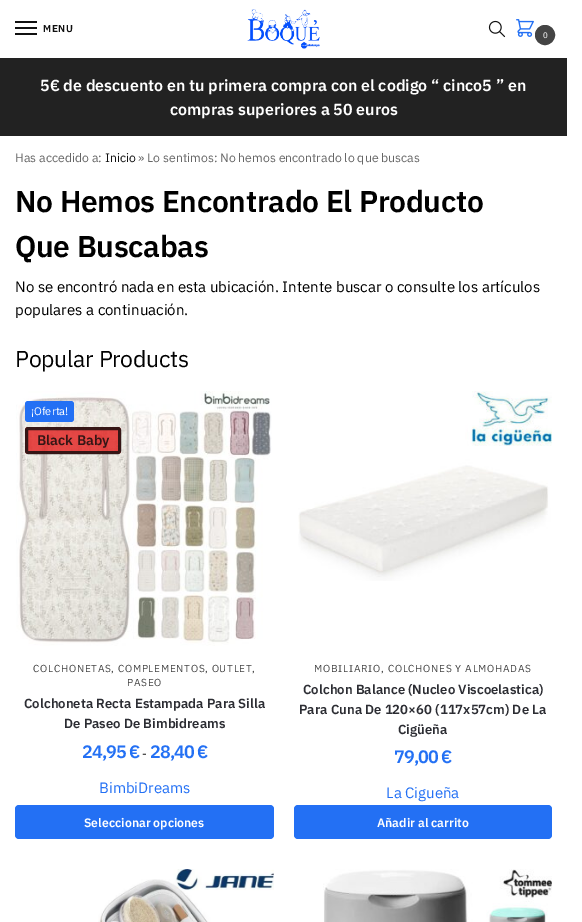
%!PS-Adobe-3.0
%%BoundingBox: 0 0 582 922
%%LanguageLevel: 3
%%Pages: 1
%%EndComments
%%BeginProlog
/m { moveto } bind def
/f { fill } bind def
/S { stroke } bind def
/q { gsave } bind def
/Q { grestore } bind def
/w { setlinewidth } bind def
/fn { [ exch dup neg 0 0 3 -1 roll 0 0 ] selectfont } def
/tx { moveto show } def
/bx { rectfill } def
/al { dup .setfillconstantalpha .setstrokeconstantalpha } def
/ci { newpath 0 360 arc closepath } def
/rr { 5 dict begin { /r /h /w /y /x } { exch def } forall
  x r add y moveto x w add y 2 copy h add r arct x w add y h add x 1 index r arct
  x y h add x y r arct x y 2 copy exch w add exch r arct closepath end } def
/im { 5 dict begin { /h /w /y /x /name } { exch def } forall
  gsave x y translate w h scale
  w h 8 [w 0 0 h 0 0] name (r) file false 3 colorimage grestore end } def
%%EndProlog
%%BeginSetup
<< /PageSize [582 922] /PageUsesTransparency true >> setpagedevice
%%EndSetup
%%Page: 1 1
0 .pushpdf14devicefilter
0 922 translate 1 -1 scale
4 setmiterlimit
1 setgray
0 0 582 922 bx
0.067 setgray
15 21 22 2 bx
15 27 22 2 bx
/IBMPlexSans-SemiBold 10 fn
43 32 m 0.5 0 (MENU) ashow
15 33 22 2 bx
(image0.raw) 247 9 73 40 im
(image1.raw) 488 20 18 18 im
(image2.raw) 516 19 18 18 im
0.267 setgray
545 35 9.5 ci q f Q
S
/IBMPlexSans-Regular 8 fn
1 setgray
(0) 543 38 tx
0.133 setgray
0 58 567 78 bx
/IBMPlexSans-SemiBold 16 fn
1 setgray
(5€ de descuento en tu primera compra con el codigo “ cinco5 ” en) 40 91 tx
(compras superiores a 50 euros) 170 115 tx
/IBMPlexSans-Regular 12.25 fn
0.4 setgray
(Has accedido a:) 15 162 tx
0.067 setgray
(Inicio) 105 162 tx
0.4 setgray
(» Lo sentimos: No hemos encontrado lo que buscas) 138 162 tx
/IBMPlexSans-SemiBold 30 fn
0 setgray
15 212 m -0.3 0 (No Hemos Encontrado El Producto) ashow
15 257 m -0.3 0 (Que Buscabas) ashow
/IBMPlexSans-Regular 15 fn
(No se encontró nada en esta ubicación. Intente buscar o consulte los artículos) 15 292 tx
(populares a continuación.) 15 315 tx
/IBMPlexSans-Regular 23 fn
15 367 m -0.25 0 (Popular Products) ashow
(image3.raw) 16 391 256 255 im
0.137 0.439 0.957 setrgbcolor
25 401 49 21 3 rr f
/IBMPlexSans-Regular 11 fn
1 setgray
(¡Oferta!) 31 415 tx
0.8 al
0.886 0.118 0.114 setrgbcolor
25 427 96 27 3 rr f
0.039 setgray
3 w
26.5 428.5 93 24 1.5 rr S
/IBMPlexSans-SemiBold 14 fn
1 al
0.208 0.086 0.082 setrgbcolor
(Black Baby) 37 445 tx
/IBMPlexSans-Regular 10.2 fn
0.267 setgray
33 672 m 0.7 0 (COLCHONETAS) ashow
111 672 m 0.7 0 (, COMPLEMENTOS) ashow
205 672 m 0.7 0 (, OUTLET) ashow
252 672 m 0.7 0 (,) ashow
127 686 m 0.7 0 (PASEO) ashow
/IBMPlexSans-SemiBold 13.2 fn
0.173 0.176 0.2 setrgbcolor
(Colchoneta Recta Estampada Para Silla) 24 708 tx
(De Paseo De Bimbidreams) 64 728 tx
/IBMPlexSans-SemiBold 18 fn
0.137 0.439 0.957 setrgbcolor
82 758 m -1 0 (24,95 €) ashow
/IBMPlexSans-Regular 12.25 fn
0.067 setgray
(-) 142 758 tx
/IBMPlexSans-SemiBold 18 fn
0.137 0.439 0.957 setrgbcolor
150 758 m -1 0 (28,40 €) ashow
/IBMPlexSans-Regular 15 fn
(BimbiDreams) 99 793 tx
15 805 259 34 4 rr f
/IBMPlexSans-SemiBold 12.25 fn
1 setgray
(Seleccionar opciones) 84 827 tx
(image4.raw) 298 391 254 190 im
/IBMPlexSans-Regular 10.2 fn
0.267 setgray
314 672 m 0.7 0 (MOBILIARIO) ashow
381 672 m 0.7 0 (, COLCHONES Y ALMOHADAS) ashow
/IBMPlexSans-SemiBold 13.2 fn
0.173 0.176 0.2 setrgbcolor
(Colchon Balance \(Nucleo Viscoelastica\)) 303 694 tx
(Para Cuna De 120×60 \(117x57cm\) De La) 299 714 tx
(Cigüeña) 398 734 tx
/IBMPlexSans-SemiBold 18 fn
0.137 0.439 0.957 setrgbcolor
394 763 m -1 0 (79,00 €) ashow
/IBMPlexSans-Regular 15 fn
(La Cigueña) 386 798 tx
294 805 258 34 4 rr f
/IBMPlexSans-SemiBold 12.25 fn
1 setgray
(Añadir al carrito) 377 827 tx
(image5.raw) 98 869 176 53 im
(image6.raw) 323 869 229 53 im
.poppdf14devicefilter showpage
%%EOF
